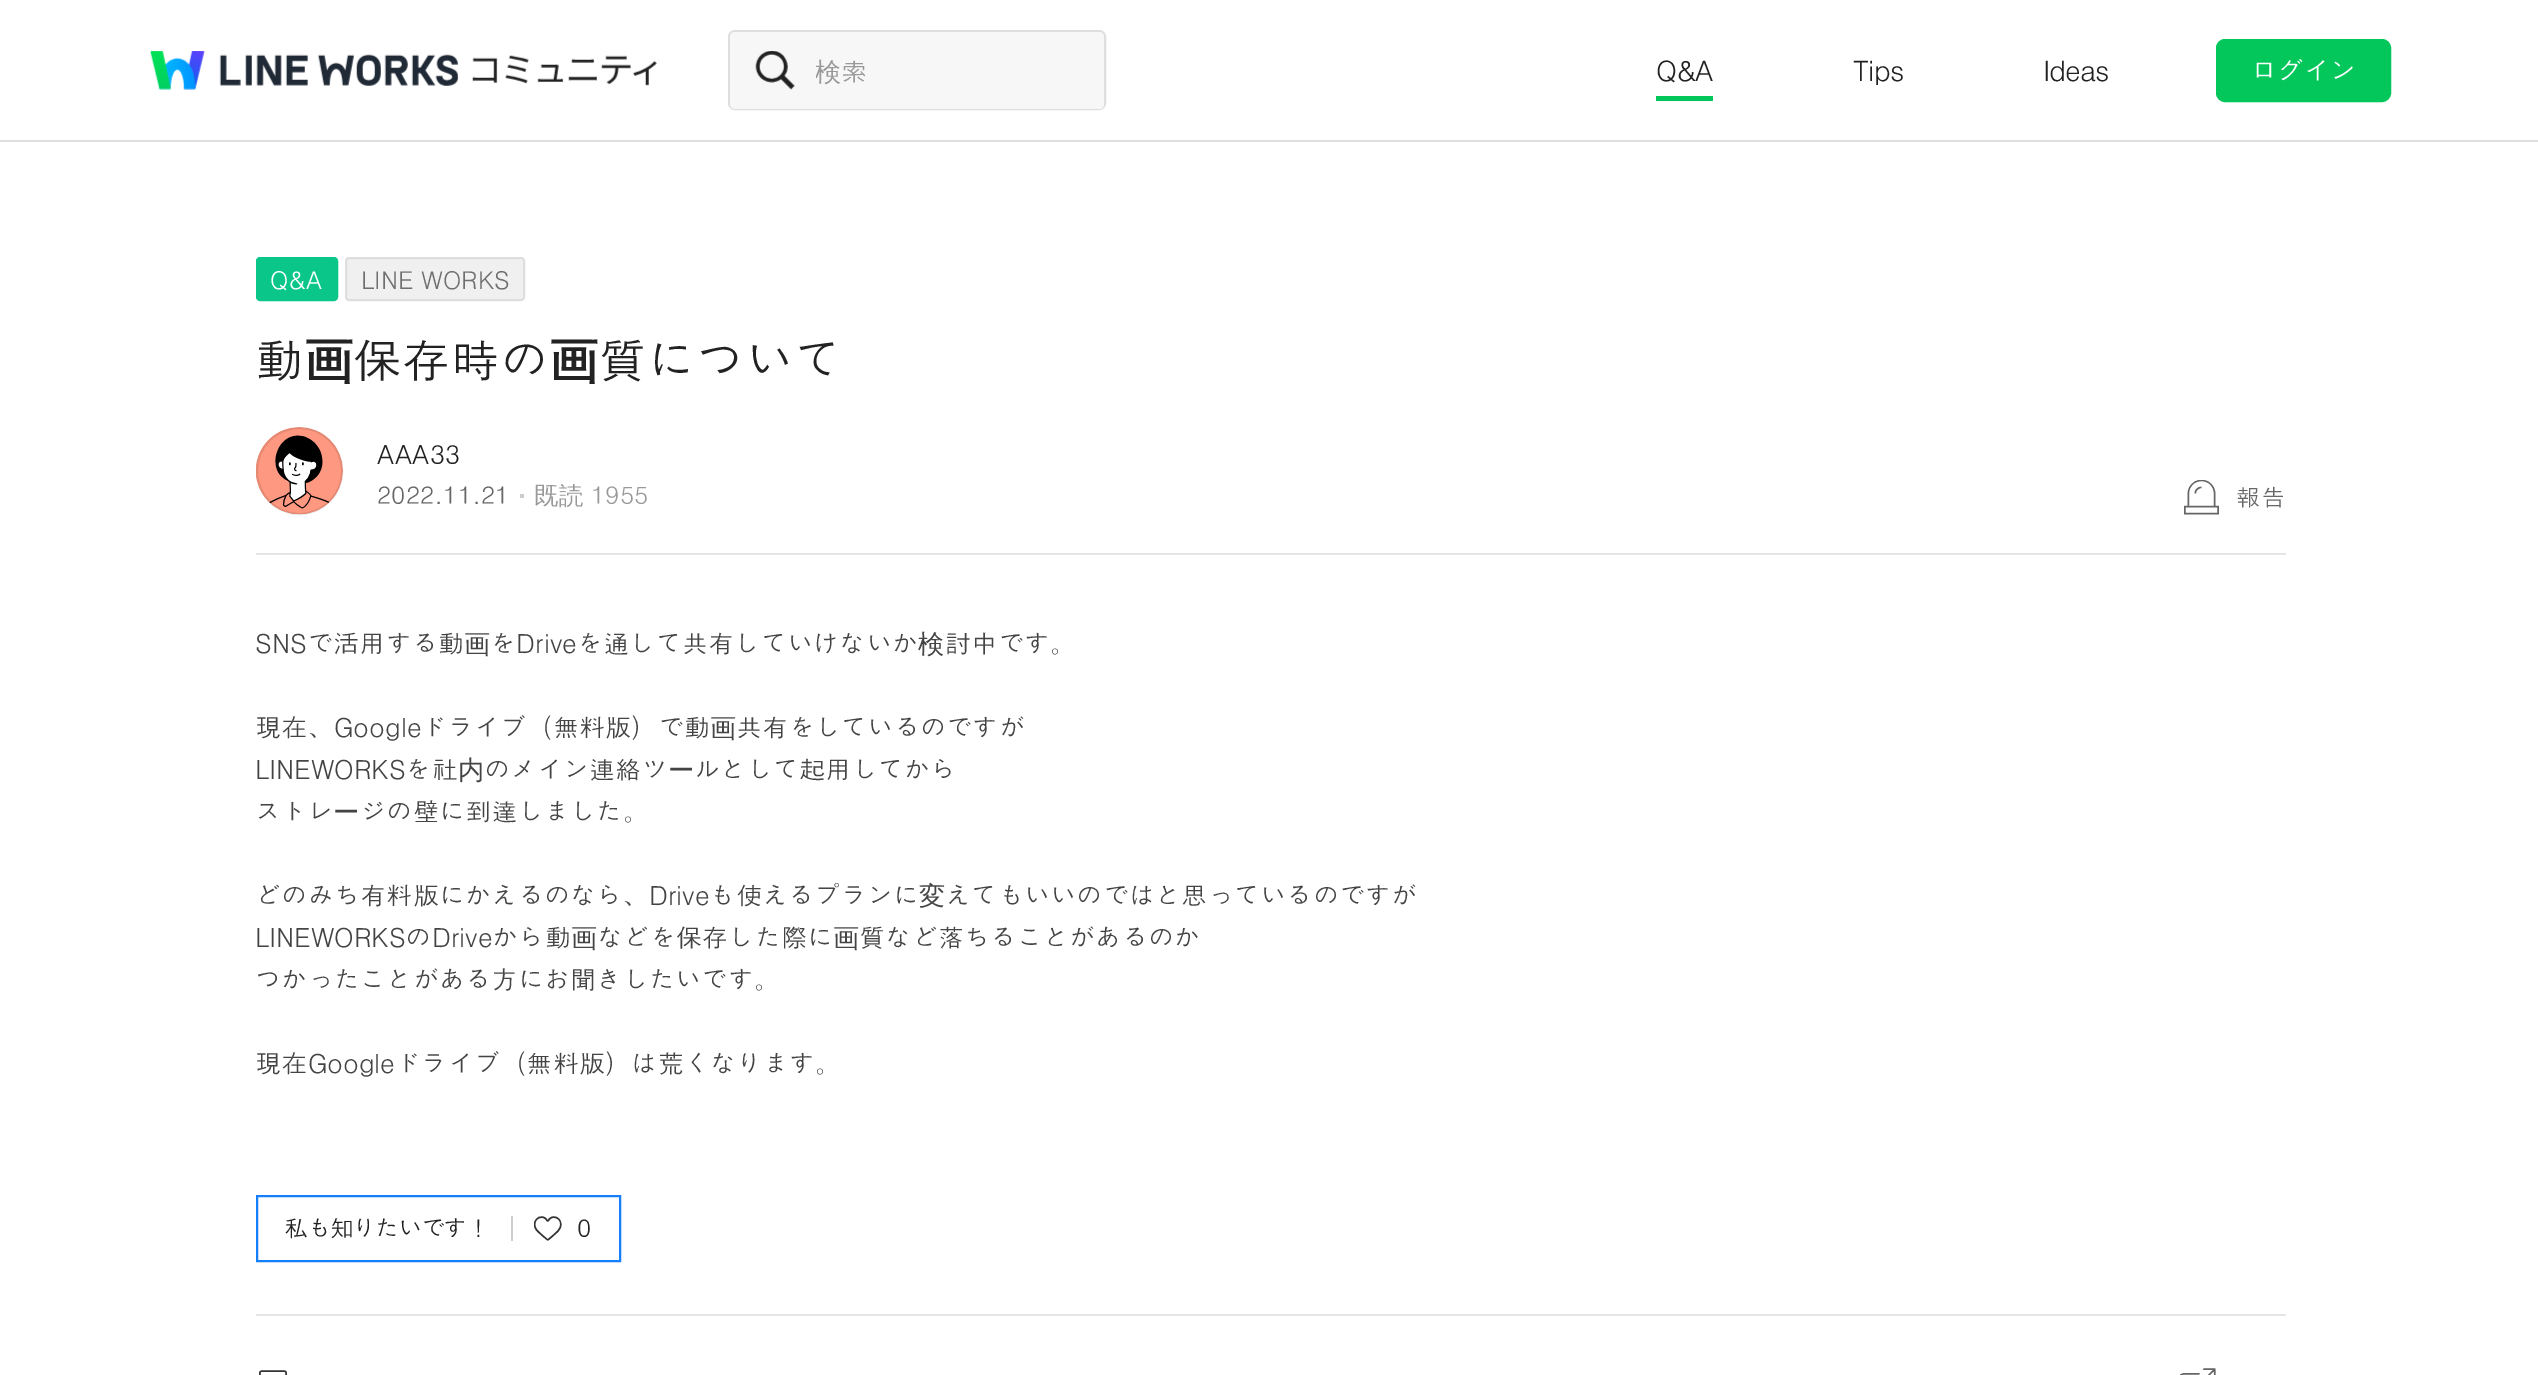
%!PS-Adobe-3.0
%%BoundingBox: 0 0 2538 1375
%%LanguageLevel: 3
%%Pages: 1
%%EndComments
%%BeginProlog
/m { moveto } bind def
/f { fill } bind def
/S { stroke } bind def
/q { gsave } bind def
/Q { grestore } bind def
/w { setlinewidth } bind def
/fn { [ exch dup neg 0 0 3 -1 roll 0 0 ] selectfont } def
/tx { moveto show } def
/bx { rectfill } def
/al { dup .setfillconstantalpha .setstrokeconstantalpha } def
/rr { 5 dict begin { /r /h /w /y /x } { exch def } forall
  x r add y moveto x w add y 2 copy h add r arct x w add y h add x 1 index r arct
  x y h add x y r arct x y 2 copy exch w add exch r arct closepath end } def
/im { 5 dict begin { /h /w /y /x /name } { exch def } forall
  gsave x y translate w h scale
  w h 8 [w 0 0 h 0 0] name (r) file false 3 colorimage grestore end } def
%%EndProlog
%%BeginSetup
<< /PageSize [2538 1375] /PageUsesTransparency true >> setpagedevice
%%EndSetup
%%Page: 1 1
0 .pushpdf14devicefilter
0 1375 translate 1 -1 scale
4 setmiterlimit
1 setgray
0 0 2538 1375 bx
0.871 setgray
0 140 2538 2 bx
(image0.raw) 150 51 309 39 im
(image1.raw) 472 55 185 31 im
2 w
729 31 376 78 6 rr S
0.969 setgray
730 32 374 77 5 rr f
(image2.raw) 755 51 40 39 im
q
816 51 267 38 rectclip
/WenQuanYiZenHei-Medium 26.25 fn
0.6 setgray
(検) 815 81 tx
Q
/Dotum-Regular 26.25 fn
0.6 setgray
(索) 841 81 tx
/Dotum-Regular 28 fn
0.133 setgray
1656 81 m -1 0 (Q&A) ashow
0.012 0.78 0.353 setrgbcolor
1656 96 57 5 bx
0.133 setgray
1853 81 m -1 0 (Tips) ashow
2043 81 m -1 0 (Ideas) ashow
0.012 0.78 0.353 setrgbcolor
2217 40 173 61 8 rr q f Q
S
1 setgray
2250 81 m -1.75 0 (ログイン) ashow
0.039 0.78 0.537 setrgbcolor
257 258 80 42 3 rr q f Q
S
/Dotum-Regular 24.5 fn
1 setgray
(Q&A) 270 289 tx
0.941 setgray
346 258 178 42 3 rr q f Q
0.871 setgray
S
0.435 setgray
(LINE WORKS) 361 289 tx
/Dotum-Regular 49 fn
0.133 setgray
(動) 255 378 tx
/WenQuanYiZenHei-Bold 49 fn
(画) 304 378 tx
/Dotum-Regular 49 fn
(保存時の) 353 378 tx
/WenQuanYiZenHei-Bold 49 fn
(画) 549 378 tx
/Dotum-Regular 49 fn
(質について) 598 378 tx
(image3.raw) 256 427 87 88 im
0.1 al
0 setgray
257 428 85 86 42.5 rr S
/Dotum-Regular 26.25 fn
1 al
0.133 setgray
(AAA33) 377 464 tx
/Dotum-Regular 24.5 fn
0.4 setgray
(2022.11.21) 377 504 tx
0.8 setgray
520 494 4 4 bx
/WenQuanYiZenHei-Medium 24.5 fn
0.6 setgray
(既読) 534 504 tx
/Dotum-Regular 24.5 fn
(1955) 591 504 tx
(image4.raw) 2184 480 35 35 im
0.4 setgray
(報告) 2236 506 tx
0.898 setgray
256 553 2030 2 bx
/Dotum-Regular 26.25 fn
0.267 setgray
(SNSで活用する動) 255 653 tx
/WenQuanYiZenHei-Medium 26.25 fn
(画) 464 653 tx
/Dotum-Regular 26.25 fn
(をDriveを通して共有していけないか) 490 653 tx
/WenQuanYiZenHei-Medium 26.25 fn
(検) 918 653 tx
/Dotum-Regular 26.25 fn
(討中です。) 945 653 tx
(現在、Googleドライブ（無料版）で動) 255 737 tx
/WenQuanYiZenHei-Medium 26.25 fn
(画) 710 737 tx
/Dotum-Regular 26.25 fn
(共有をしているのですが) 736 737 tx
(LINEWORKSを社) 255 779 tx
/WenQuanYiZenHei-Medium 26.25 fn
(内) 458 779 tx
/Dotum-Regular 26.25 fn
(のメイン連絡ツ) 484 779 tx
/WenQuanYiZenHei-Medium 26.25 fn
(ー) 668 779 tx
/Dotum-Regular 26.25 fn
(ルとして起用してから) 694 779 tx
(ストレ) 255 821 tx
/WenQuanYiZenHei-Medium 26.25 fn
(ー) 333 821 tx
/Dotum-Regular 26.25 fn
(ジの壁に到達しました。) 360 821 tx
(どのみち有料版にかえるのなら、Driveも使えるプランに) 255 905 tx
/WenQuanYiZenHei-Medium 26.25 fn
(変) 919 905 tx
/Dotum-Regular 26.25 fn
(えてもいいのではと思っているのですが) 945 905 tx
(LINEWORKSのDriveから動) 255 947 tx
/WenQuanYiZenHei-Medium 26.25 fn
(画) 571 947 tx
/Dotum-Regular 26.25 fn
(などを保存した際に) 597 947 tx
/WenQuanYiZenHei-Medium 26.25 fn
(画) 833 947 tx
/Dotum-Regular 26.25 fn
(質など落ちることがあるのか) 859 947 tx
(つかったことがある方にお聞きしたいです。) 255 989 tx
(現在Googleドライブ（無料版）は荒くなります。) 255 1073 tx
0.082 0.494 0.984 setrgbcolor
257 1196 363 65 rectstroke
/Dotum-Regular 24.5 fn
0.133 setgray
284 1237 m -1.75 0 (私も知りたいです！) ashow
0.804 setgray
511 1216 2 25 bx
(image5.raw) 534 1216 28 25 im
0.133 setgray
(0) 577 1237 tx
0.898 setgray
256 1314 2030 2 bx
(image6.raw) 259 1370 28 5 im
(image7.raw) 2179 1368 37 7 im
.poppdf14devicefilter showpage
%%EOF
